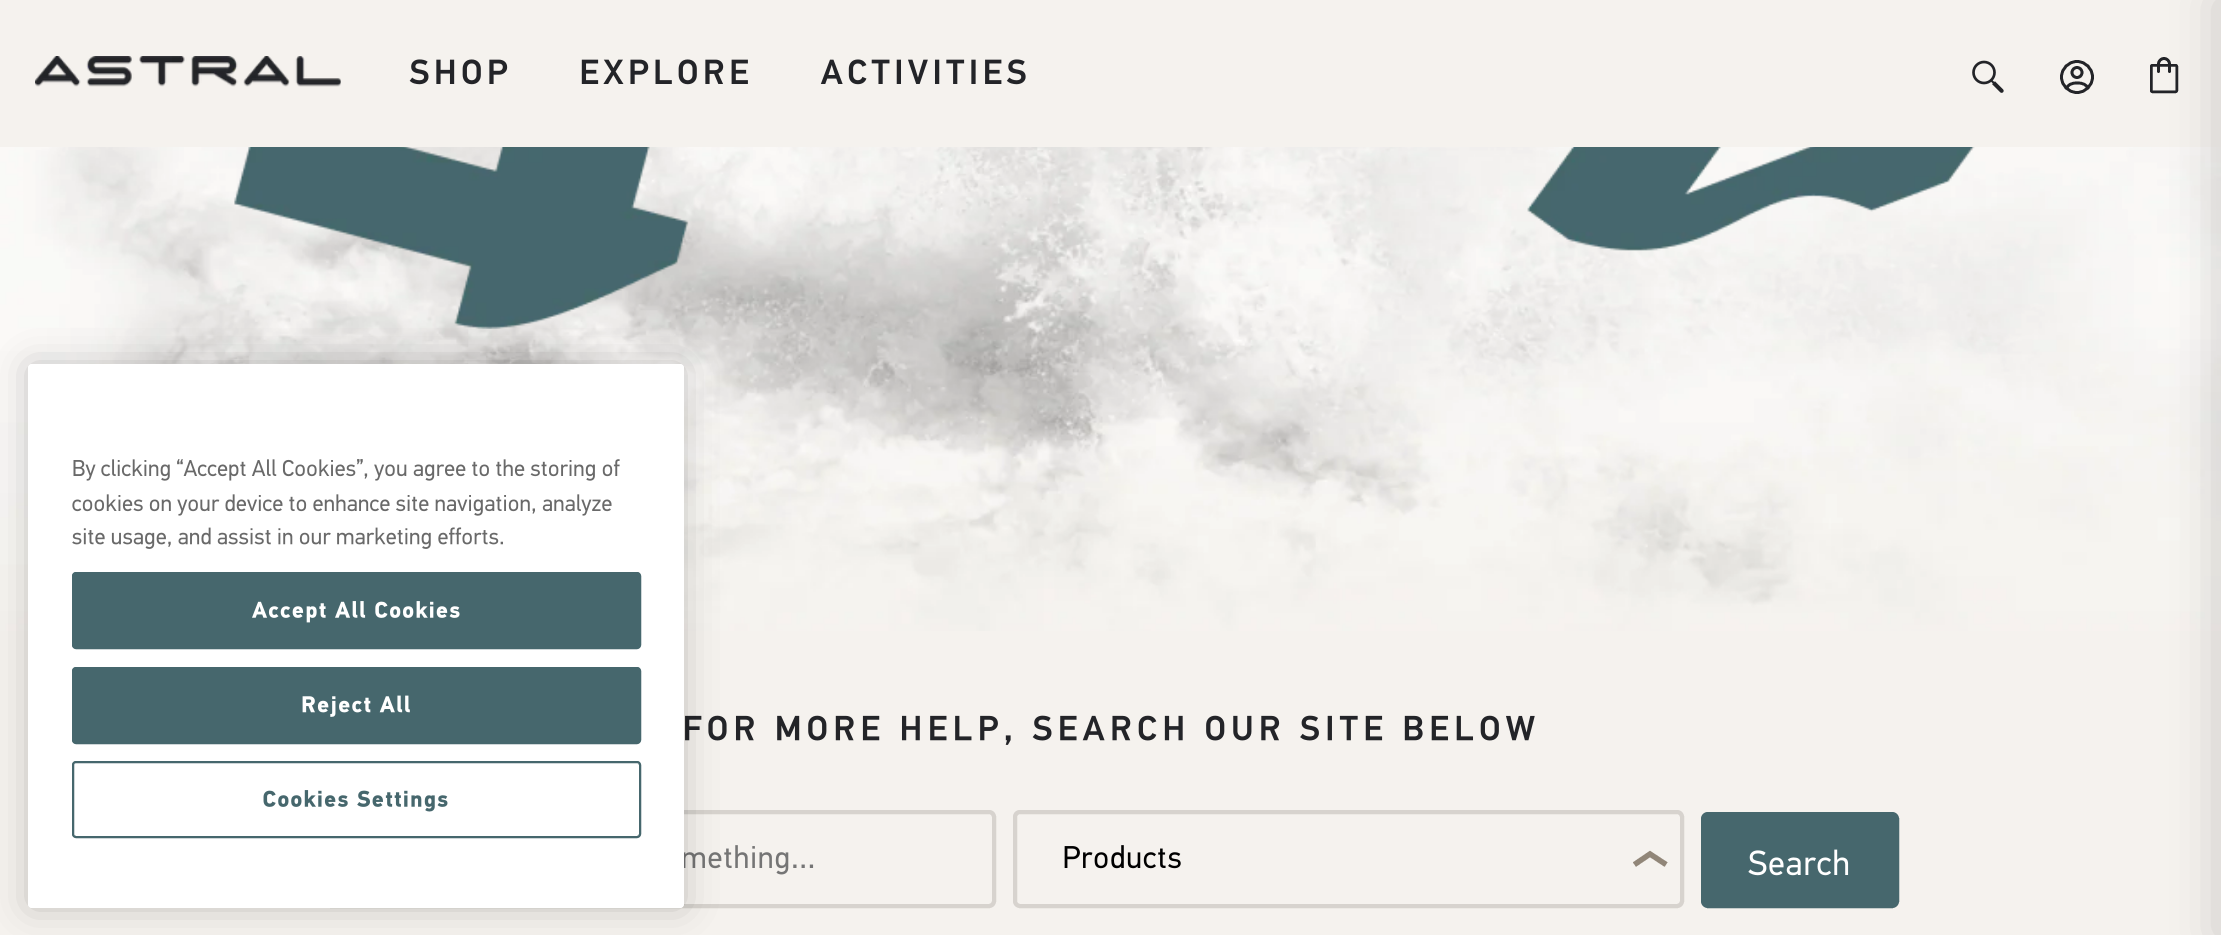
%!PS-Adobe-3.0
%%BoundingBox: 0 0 2221 935
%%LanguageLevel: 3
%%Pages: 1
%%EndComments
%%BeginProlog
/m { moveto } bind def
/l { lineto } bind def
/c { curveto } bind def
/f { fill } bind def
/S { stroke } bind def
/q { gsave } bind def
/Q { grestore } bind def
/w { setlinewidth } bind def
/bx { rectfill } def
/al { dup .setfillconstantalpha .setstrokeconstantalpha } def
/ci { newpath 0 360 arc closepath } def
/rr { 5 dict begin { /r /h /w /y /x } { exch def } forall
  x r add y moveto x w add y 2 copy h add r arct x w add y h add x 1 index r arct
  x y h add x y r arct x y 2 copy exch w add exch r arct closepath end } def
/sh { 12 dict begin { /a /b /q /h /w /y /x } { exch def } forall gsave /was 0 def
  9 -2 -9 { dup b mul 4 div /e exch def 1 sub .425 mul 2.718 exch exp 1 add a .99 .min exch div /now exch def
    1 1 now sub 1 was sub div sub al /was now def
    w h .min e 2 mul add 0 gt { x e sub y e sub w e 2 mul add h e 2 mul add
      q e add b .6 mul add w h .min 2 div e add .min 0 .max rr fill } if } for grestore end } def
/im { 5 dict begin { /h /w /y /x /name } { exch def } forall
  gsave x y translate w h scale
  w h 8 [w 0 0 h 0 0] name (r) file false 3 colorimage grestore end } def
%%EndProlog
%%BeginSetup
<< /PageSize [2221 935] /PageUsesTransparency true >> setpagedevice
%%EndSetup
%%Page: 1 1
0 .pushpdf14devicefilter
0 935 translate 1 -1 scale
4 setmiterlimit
0.961 0.949 0.933 setrgbcolor
0 0 2221 935 bx
(image0.raw) 35 56 306 31 im
(image1.raw) 409 59 99 26 im
(image2.raw) 581 59 167 26 im
(image3.raw) 820 59 206 26 im
(image4.raw) 1972 60 32 33 im
0.137 0.141 0.157 setrgbcolor
2.7 w
2077 77 15.5 ci S
2077 72.5 5 ci S
2087.5 88.5 m 2087.5 81 2067 81 2067 88.5 c S
2.5 w
2151.25 65.25 25.5 26.5 1.25 rr S
2.7 w
1 setlinecap
2169.5 71.5 m 2169.5 64 l 2169.5 61 2167 58.5 2164 58.5 c 2161 58.5 2158.5 61 2158.5 64 c 2158.5 71.5 l S
(image5.raw) 0 147 2221 484 im
0 setgray
2216 0 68 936 0 21 0.15 sh
(image6.raw) 234 147 1741 182 im
(image7.raw) 685 715 850 30 im
0.843 0.827 0.808 setrgbcolor
4 w
0 setlinecap
326 812 668 94 5 rr S
(image8.raw) 684 845 130 30 im
1015 812 667 94 5 rr S
(image9.raw) 1064 845 117 24 im
0.569 0.525 0.471 setrgbcolor
5.2 w
1634.5 864.5 m 1650 854 l 1666 864.5 l S
0.275 0.404 0.427 setrgbcolor
1702 813 196 94 6 rr q f Q
2 w
S
(image10.raw) 1748 849 101 27 im
0 setgray
28 364 656 544 4 16 0.2 sh
1 setgray
28 364 656 544 4 rr f
(image11.raw) 73 459 547 22 im
(image12.raw) 72 494 540 22 im
(image13.raw) 72 527 431 22 im
0.275 0.404 0.427 setrgbcolor
73 573 567 75 3 rr q f Q
S
(image14.raw) 252 601 208 22 im
73 668 567 75 3 rr q f Q
S
(image15.raw) 302 695 108 22 im
73 762 567 75 3 rr S
(image16.raw) 263 790 185 22 im
.poppdf14devicefilter showpage
%%EOF
